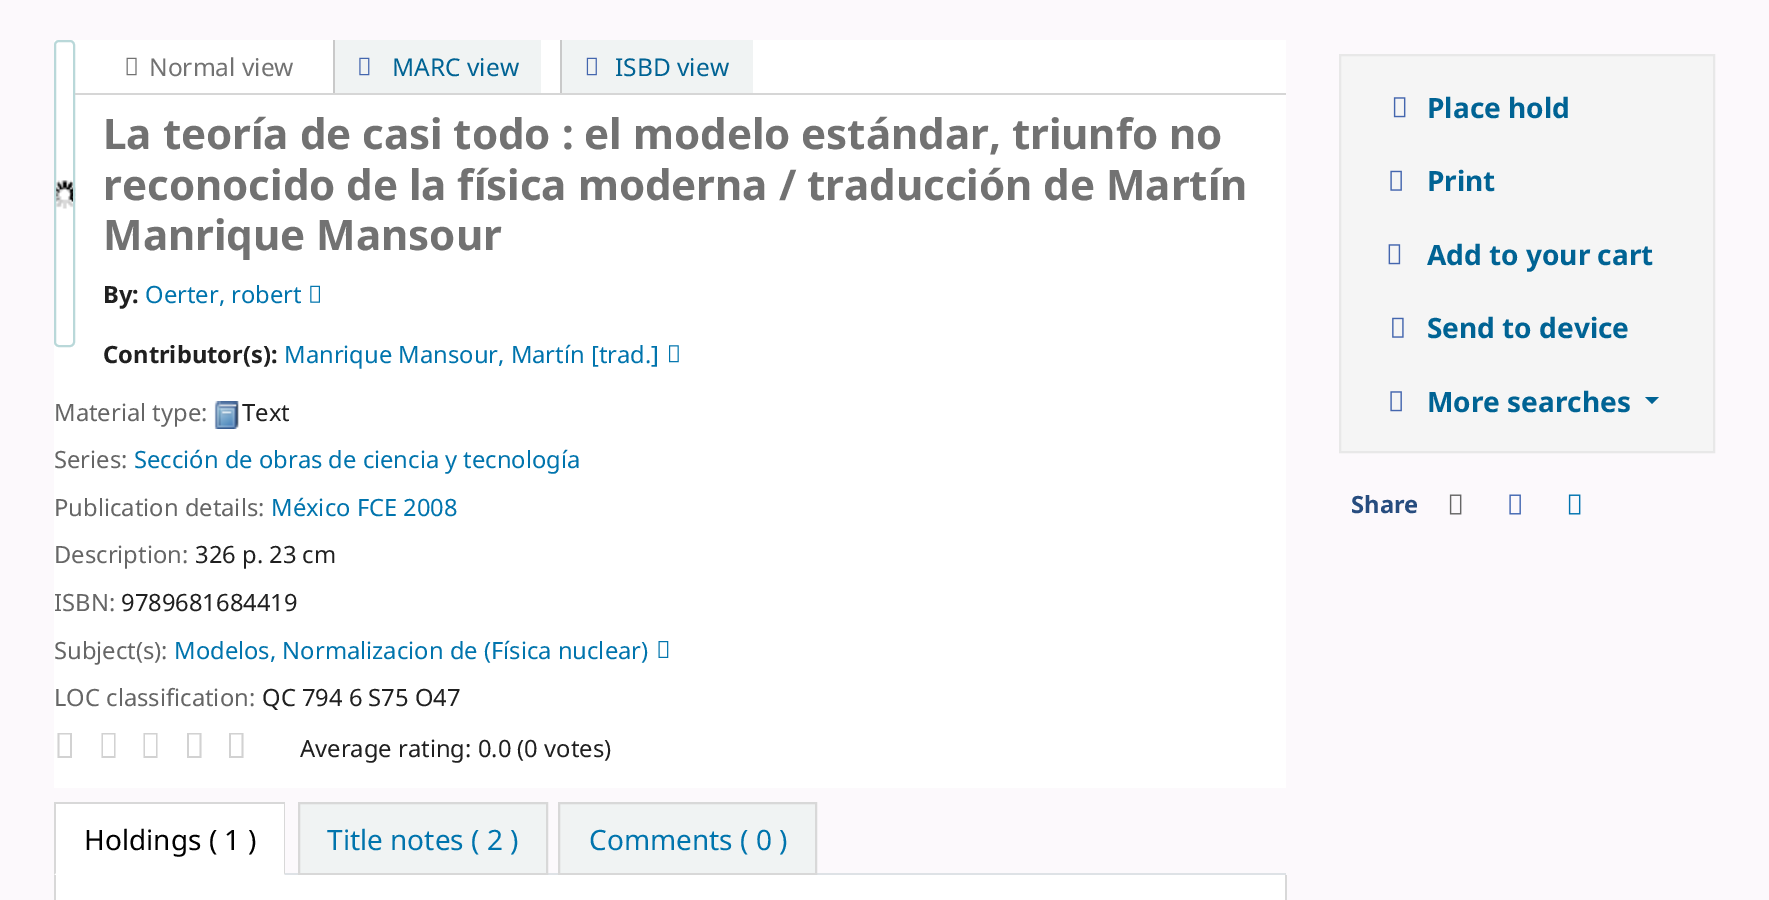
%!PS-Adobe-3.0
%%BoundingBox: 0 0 1769 900
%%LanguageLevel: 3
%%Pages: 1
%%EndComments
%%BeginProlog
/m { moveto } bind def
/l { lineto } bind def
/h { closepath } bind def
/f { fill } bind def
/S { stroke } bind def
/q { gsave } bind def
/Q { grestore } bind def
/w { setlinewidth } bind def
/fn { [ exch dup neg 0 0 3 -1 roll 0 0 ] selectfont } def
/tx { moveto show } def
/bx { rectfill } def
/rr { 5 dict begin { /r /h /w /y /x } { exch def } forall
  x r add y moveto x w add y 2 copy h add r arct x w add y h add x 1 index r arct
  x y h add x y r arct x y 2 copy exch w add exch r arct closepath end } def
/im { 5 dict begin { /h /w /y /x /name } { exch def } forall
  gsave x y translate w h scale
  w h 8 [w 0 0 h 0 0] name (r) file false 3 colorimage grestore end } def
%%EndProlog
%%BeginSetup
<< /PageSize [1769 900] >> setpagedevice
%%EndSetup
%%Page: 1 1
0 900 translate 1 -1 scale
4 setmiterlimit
0.988 0.976 0.988 setrgbcolor
0 0 1769 900 bx
1 setgray
54 40 1232 748 bx
(image0.raw) 56 180 20 29 im
0.725 0.847 0.851 setrgbcolor
2 w
55 41 19 305 4 rr S
0.839 setgray
75 93 1211 2 bx
(image1.raw) 126 57 11 19 im
/NotoSans-Regular 24.5 fn
0.447 setgray
(Normal view) 149 76 tx
0.941 0.953 0.953 setrgbcolor
335 40 206 53 bx
0.788 setgray
333 40 2 53 bx
(image2.raw) 359 57 11 19 im
0 0.388 0.58 setrgbcolor
(MARC view) 392 76 tx
0.941 0.953 0.953 setrgbcolor
562 40 191 53 bx
0.788 setgray
560 40 2 53 bx
(image3.raw) 586 57 11 19 im
0 0.388 0.58 setrgbcolor
(ISBD view) 615 76 tx
/NotoSans-Bold 42 fn
0.447 setgray
(La teoría de casi todo : el modelo estándar, triunfo no) 103 149 tx
(reconocido de la física moderna / traducción de Martín) 103 200 tx
(Manrique Mansour) 103 250 tx
/NotoSans-Bold 23.75 fn
0.125 setgray
(By:) 103 303 tx
/NotoSans-Regular 23.75 fn
0 0.455 0.678 setrgbcolor
(Oerter, robert) 145 303 tx
(image4.raw) 310 285 10 18 im
/NotoSans-Bold 23.75 fn
0.125 setgray
(Contributor\(s\):) 103 363 tx
/NotoSans-Regular 23.75 fn
0 0.455 0.678 setrgbcolor
(Manrique Mansour, Martín [trad.]) 284 363 tx
(image5.raw) 669 345 10 18 im
0.4 setgray
(Material type:) 54 421 tx
(image6.raw) 214 401 25 28 im
0.125 setgray
(Text) 242 421 tx
0.4 setgray
(Series:) 54 468 tx
0 0.455 0.678 setrgbcolor
(Sección de obras de ciencia y tecnología) 134 468 tx
0.4 setgray
(Publication details:) 54 516 tx
0 0.455 0.678 setrgbcolor
(México FCE 2008) 271 516 tx
0.4 setgray
(Description:) 54 563 tx
0.125 setgray
(326 p. 23 cm) 195 563 tx
0.4 setgray
(ISBN:) 54 611 tx
0.125 setgray
(9789681684419) 121 611 tx
0.4 setgray
(Subject\(s\):) 54 659 tx
0 0.455 0.678 setrgbcolor
(Modelos, Normalizacion de \(Física nuclear\)) 174 659 tx
(image7.raw) 658 641 11 17 im
0.4 setgray
(LOC classification:) 54 706 tx
0.125 setgray
(QC 794 6 S75 O47) 262 706 tx
0.824 setgray
57.5 758 m 57.5 733 l 72 733 l 72 758 l h 59.5 756 m 70 756 l 70 734.5 l 59.5 734.5 l h 101.5 758 m 101.5 733 l 115.5 733 l 115.5 758 l h 103 756 m 114 756 l 114 734.5 l 103 734.5 l h f
143.5 758 m 143.5 733 l 157.5 733 l 157.5 758 l h 145 756 m 156 756 l 156 734.5 l 145 734.5 l h 187 758 m 187 733 l 201.5 733 l 201.5 758 l h 189 756 m 199.5 756 l 199.5 734.5 l 189 734.5 l h f
229 758 m 229 733 l 243.5 733 l 243.5 758 l h 231 756 m 241.5 756 l 241.5 734.5 l 231 734.5 l h f
0.125 setgray
(Average rating: 0.0 \(0 votes\)) 300 757 tx
0.871 0.886 0.902 setrgbcolor
285 873 1001 2 bx
1 setgray
54 804 231 71 bx
0.847 setgray
54 802 231 2 bx
285 802 m 285 875 l 284 873 l 284 803 l h f
54 875 m 54 802 l 56 803 l 56 873 l h f
/NotoSans-Regular 28 fn
0 setgray
(Holdings \( 1 \)) 84 850 tx
0.941 0.953 0.953 setrgbcolor
299 803 m 547 803 l 547 874 l 299 874 l h q f Q
0.847 setgray
S
0 0.455 0.678 setrgbcolor
(Title notes \( 2 \)) 327 850 tx
0.941 0.953 0.953 setrgbcolor
559 803 m 816 803 l 816 874 l 559 874 l h q f Q
0.847 setgray
S
0 0.455 0.678 setrgbcolor
(Comments \( 0 \)) 589 850 tx
1 setgray
56 875 1229 25 bx
0.847 setgray
1285 875 2 25 bx
54 875 2 25 bx
0.961 setgray
1340 55 m 1714 55 l 1714 452 l 1340 452 l h q f Q
0.91 setgray
S
(image8.raw) 1393 97 13 21 im
/NotoSans-Bold 28 fn
0 0.388 0.58 setrgbcolor
(Place hold) 1427 118 tx
(image9.raw) 1390 170 12 21 im
(Print) 1427 191 tx
(image10.raw) 1388 244 13 21 im
(Add to your cart) 1427 265 tx
(image11.raw) 1392 317 12 21 im
(Send to device) 1427 338 tx
(image12.raw) 1390 391 12 21 im
(More searches) 1427 412 tx
1645 397 m 1659 397 l 1652 404 l h f
/NotoSans-Bold 23.75 fn
0.153 0.302 0.498 setrgbcolor
(Share) 1351 513 tx
(image13.raw) 1449 494 13 21 im
(image14.raw) 1509 494 12 21 im
(image15.raw) 1568 494 13 21 im
showpage
%%EOF
